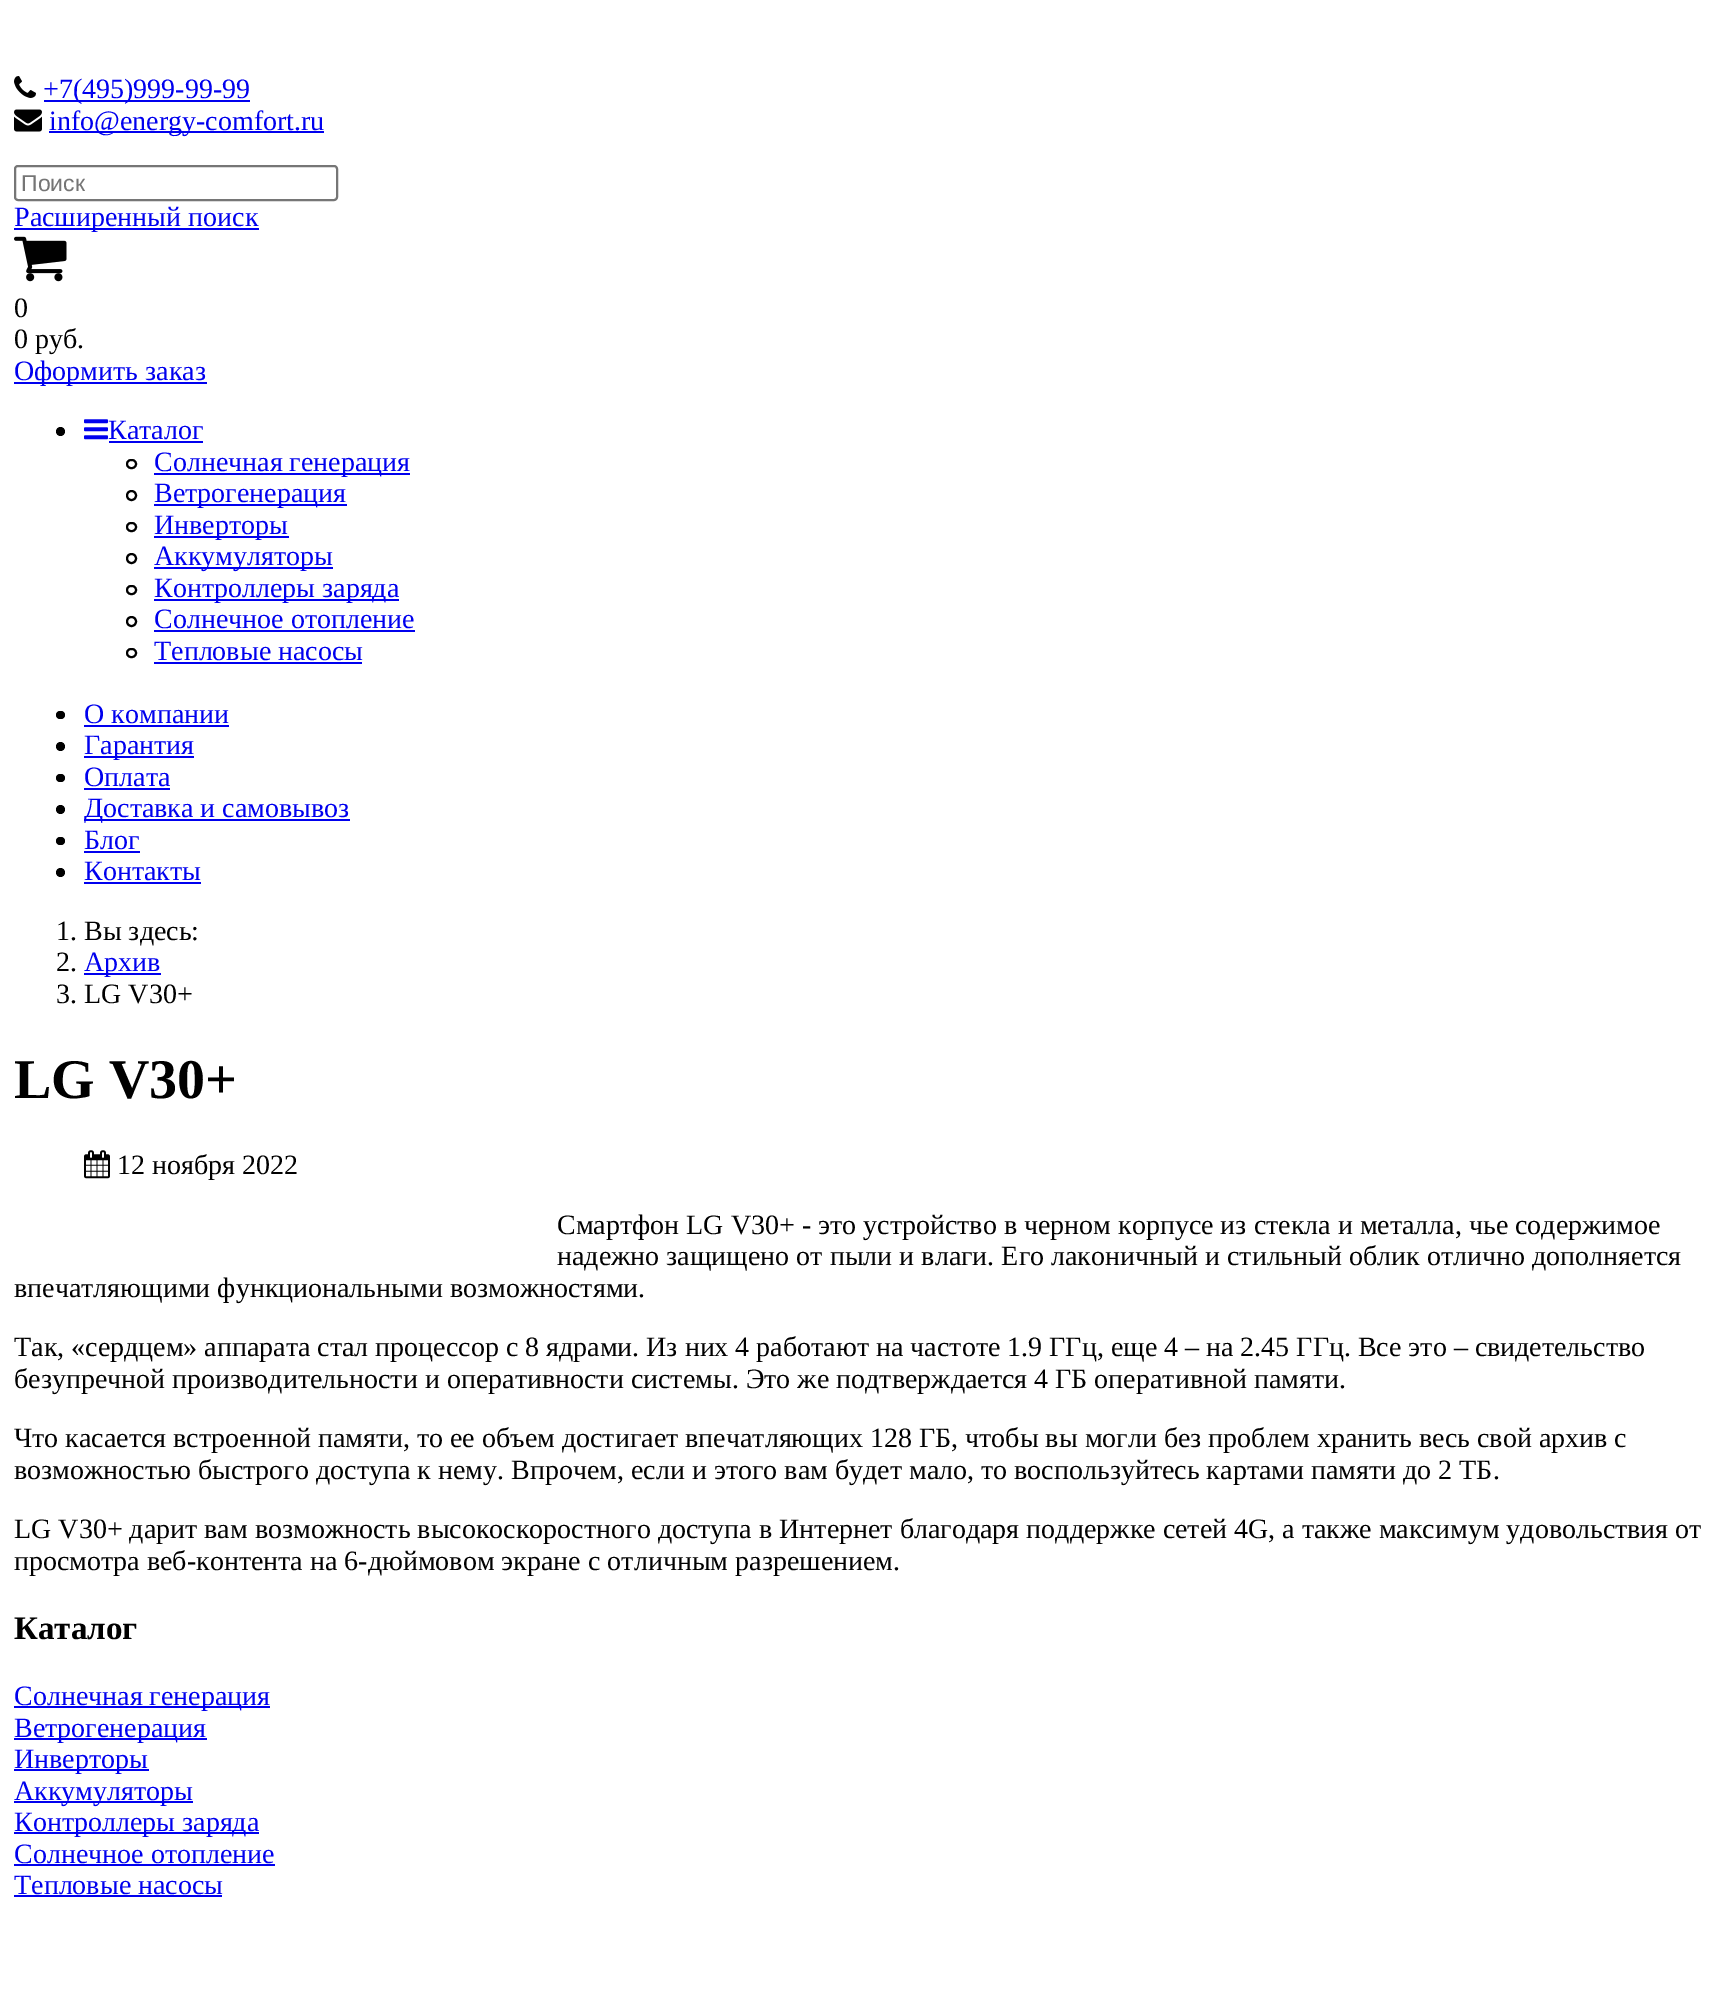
%!PS-Adobe-3.0
%%BoundingBox: 0 0 1735 1990
%%LanguageLevel: 3
%%Pages: 1
%%EndComments
%%BeginProlog
/f { fill } bind def
/S { stroke } bind def
/w { setlinewidth } bind def
/fn { [ exch dup neg 0 0 3 -1 roll 0 0 ] selectfont } def
/tx { moveto show } def
/bx { rectfill } def
/ci { newpath 0 360 arc closepath } def
/rr { 5 dict begin { /r /h /w /y /x } { exch def } forall
  x r add y moveto x w add y 2 copy h add r arct x w add y h add x 1 index r arct
  x y h add x y r arct x y 2 copy exch w add exch r arct closepath end } def
/im { 5 dict begin { /h /w /y /x /name } { exch def } forall
  gsave x y translate w h scale
  w h 8 [w 0 0 h 0 0] name (r) file false 3 colorimage grestore end } def
%%EndProlog
%%BeginSetup
<< /PageSize [1735 1990] >> setpagedevice
%%EndSetup
%%Page: 1 1
0 1990 translate 1 -1 scale
4 setmiterlimit
1 setgray
0 0 1735 1990 bx
(image0.raw) 14 76 22 22 im
0 0 0.933 setrgbcolor
44 100 206 2 bx
/LiberationSerif-Regular 28 fn
(+7\(495\)999-99-99) 43 98 tx
(image1.raw) 14 109 28 23 im
49 131 275 2 bx
(info@energy-comfort.ru) 49 130 tx
0.463 setgray
2 w
15 166 322 34 3 rr S
/LiberationSans-Regular 23 fn
0.459 setgray
(Поиск) 21 191 tx
0 0 0.933 setrgbcolor
14 228 245 2 bx
/LiberationSerif-Regular 28 fn
(Расширенный поиск) 14 226 tx
(image2.raw) 14 236 53 46 im
0 setgray
(0) 14 317 tx
(0 руб.) 14 348 tx
0 0 0.933 setrgbcolor
14 382 193 2 bx
(Оформить заказ) 14 380 tx
0 setgray
60.5 431.5 4.5 ci f
(image3.raw) 84 419 24 21 im
0 0 0.933 setrgbcolor
(Каталог) 108 439 tx
109 441 94 2 bx
0 setgray
127 460 9 8 4 rr S
0 0 0.933 setrgbcolor
154 473 256 2 bx
(Солнечная генерация) 154 471 tx
0 setgray
131.5 495.5 4.5 ci S
0 0 0.933 setrgbcolor
154 504 193 2 bx
(Ветрогенерация) 154 502 tx
0 setgray
127 523 9 8 4 rr S
0 0 0.933 setrgbcolor
154 536 135 2 bx
(Инверторы) 154 534 tx
0 setgray
131.5 558.5 4.5 ci S
0 0 0.933 setrgbcolor
154 567 179 2 bx
(Аккумуляторы) 154 565 tx
0 setgray
127 586 9 8 4 rr S
0 0 0.933 setrgbcolor
154 599 245 2 bx
(Контроллеры заряда) 154 597 tx
0 setgray
131.5 621.5 4.5 ci S
0 0 0.933 setrgbcolor
(Солнечное отопление) 154 628 tx
154 630 261 2 bx
0 setgray
127 649 9 8 4 rr S
0 0 0.933 setrgbcolor
(Тепловые насосы) 154 660 tx
154 662 208 2 bx
0 setgray
56 711 9 8 4 rr f
0 0 0.933 setrgbcolor
(О компании) 84 723 tx
84 725 145 2 bx
0 setgray
60.5 746.5 4.5 ci f
0 0 0.933 setrgbcolor
84 756 110 2 bx
(Гарантия) 84 754 tx
0 setgray
56 774 9 8 4 rr f
0 0 0.933 setrgbcolor
(Оплата) 84 786 tx
84 788 86 2 bx
0 setgray
60.5 809.5 4.5 ci f
0 0 0.933 setrgbcolor
84 819 266 2 bx
(Доставка и самовывоз) 84 817 tx
0 setgray
56 837 9 8 4 rr f
0 0 0.933 setrgbcolor
(Блог) 84 849 tx
84 851 56 2 bx
0 setgray
60.5 872.5 4.5 ci f
0 0 0.933 setrgbcolor
(Контакты) 84 880 tx
84 882 117 2 bx
0 setgray
(1. Вы здесь:) 56 940 tx
(2.) 56 971 tx
0 0 0.933 setrgbcolor
84 973 77 2 bx
(Архив) 84 971 tx
0 setgray
(3. LG V30+) 56 1003 tx
/LiberationSerif-Bold 56 fn
(LG V30+) 14 1098 tx
(image4.raw) 84 1150 26 29 im
/LiberationSerif-Regular 28 fn
(12 ноября 2022) 117 1174 tx
(Смартфон LG V30+ - это устройство в черном корпусе из стекла и металла, чье содержимое) 557 1234 tx
(надежно защищено от пыли и влаги. Его лаконичный и стильный облик отлично дополняется) 557 1265 tx
(впечатляющими функциональными возможностями.) 14 1297 tx
(Так, «сердцем» аппарата стал процессор с 8 ядрами. Из них 4 работают на частоте 1.9 ГГц, еще 4 – на 2.45 ГГц. Все это – свидетельство) 14 1356 tx
(безупречной производительности и оперативности системы. Это же подтверждается 4 ГБ оперативной памяти.) 14 1388 tx
(Что касается встроенной памяти, то ее объем достигает впечатляющих 128 ГБ, чтобы вы могли без проблем хранить весь свой архив с) 14 1447 tx
(возможностью быстрого доступа к нему. Впрочем, если и этого вам будет мало, то воспользуйтесь картами памяти до 2 ТБ.) 14 1479 tx
(LG V30+ дарит вам возможность высокоскоростного доступа в Интернет благодаря поддержке сетей 4G, а также максимум удовольствия от) 14 1538 tx
(просмотра веб-контента на 6-дюймовом экране с отличным разрешением.) 14 1570 tx
/LiberationSerif-Bold 33 fn
(Каталог) 14 1639 tx
0 0 0.933 setrgbcolor
14 1706 256 2 bx
/LiberationSerif-Regular 28 fn
(Солнечная генерация) 14 1705 tx
14 1738 193 2 bx
(Ветрогенерация) 14 1737 tx
14 1769 135 2 bx
(Инверторы) 14 1768 tx
14 1801 179 2 bx
(Аккумуляторы) 14 1800 tx
14 1832 245 2 bx
(Контроллеры заряда) 14 1831 tx
(Солнечное отопление) 14 1863 tx
14 1864 261 2 bx
(Тепловые насосы) 14 1894 tx
14 1895 208 2 bx
showpage
%%EOF
